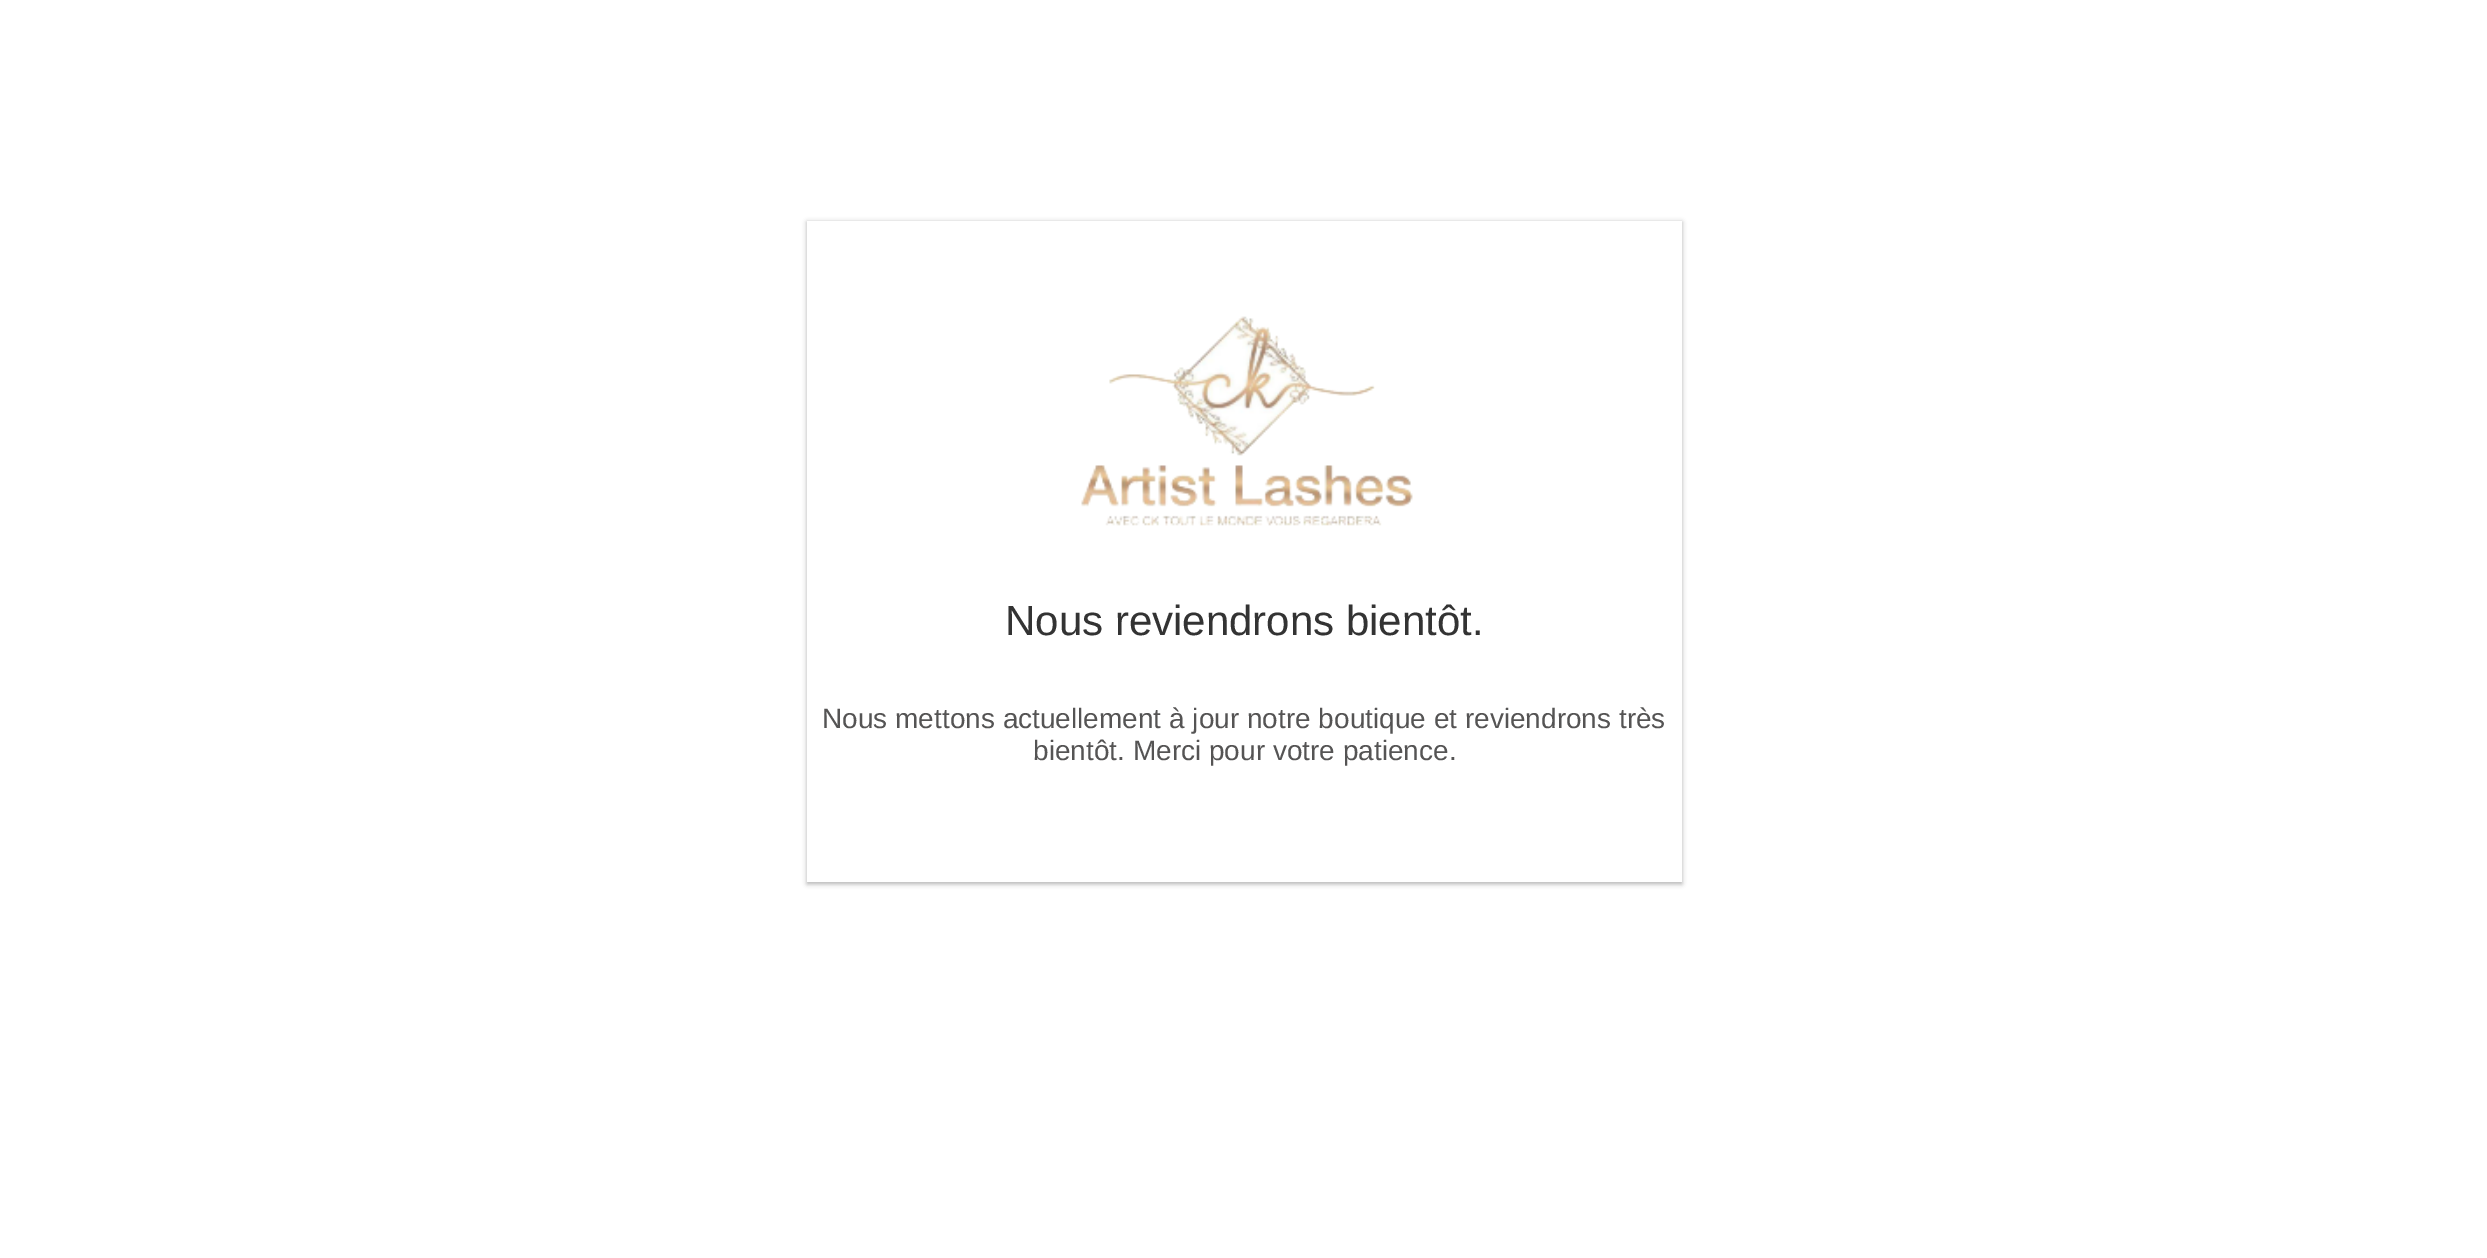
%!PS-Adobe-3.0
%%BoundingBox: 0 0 2487 1258
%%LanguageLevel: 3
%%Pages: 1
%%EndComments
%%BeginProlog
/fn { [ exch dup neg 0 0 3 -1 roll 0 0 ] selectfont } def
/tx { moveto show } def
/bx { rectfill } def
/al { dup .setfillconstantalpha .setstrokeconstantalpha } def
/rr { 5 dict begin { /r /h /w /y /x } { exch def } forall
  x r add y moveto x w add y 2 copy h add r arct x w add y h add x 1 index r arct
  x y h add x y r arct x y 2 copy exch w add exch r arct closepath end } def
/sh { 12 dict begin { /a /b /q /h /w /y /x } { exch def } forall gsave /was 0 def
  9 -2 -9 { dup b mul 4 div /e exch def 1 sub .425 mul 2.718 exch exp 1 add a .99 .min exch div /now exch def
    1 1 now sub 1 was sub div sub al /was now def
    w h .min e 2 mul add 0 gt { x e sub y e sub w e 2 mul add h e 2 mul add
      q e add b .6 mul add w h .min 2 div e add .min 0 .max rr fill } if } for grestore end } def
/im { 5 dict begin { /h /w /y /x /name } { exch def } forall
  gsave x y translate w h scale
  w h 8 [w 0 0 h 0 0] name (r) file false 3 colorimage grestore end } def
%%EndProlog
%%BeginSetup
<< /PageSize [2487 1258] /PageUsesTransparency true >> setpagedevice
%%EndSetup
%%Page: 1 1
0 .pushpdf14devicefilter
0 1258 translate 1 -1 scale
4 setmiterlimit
1 setgray
0 0 2487 1258 bx
0 setgray
807 222 875 662 0 2.5 0.3 sh
1 setgray
807 221 875 661 bx
(image0.raw) 1081 316 332 210 im
/LiberationSans-Regular 42 fn
0.2 setgray
(Nous reviendrons bientôt.) 1005 635 tx
/LiberationSans-Regular 28 fn
0.333 0.329 0.329 setrgbcolor
(Nous mettons actuellement à jour notre boutique et reviendrons très) 822 728 tx
(bientôt. Merci pour votre patience.) 1033 760 tx
.poppdf14devicefilter showpage
%%EOF
